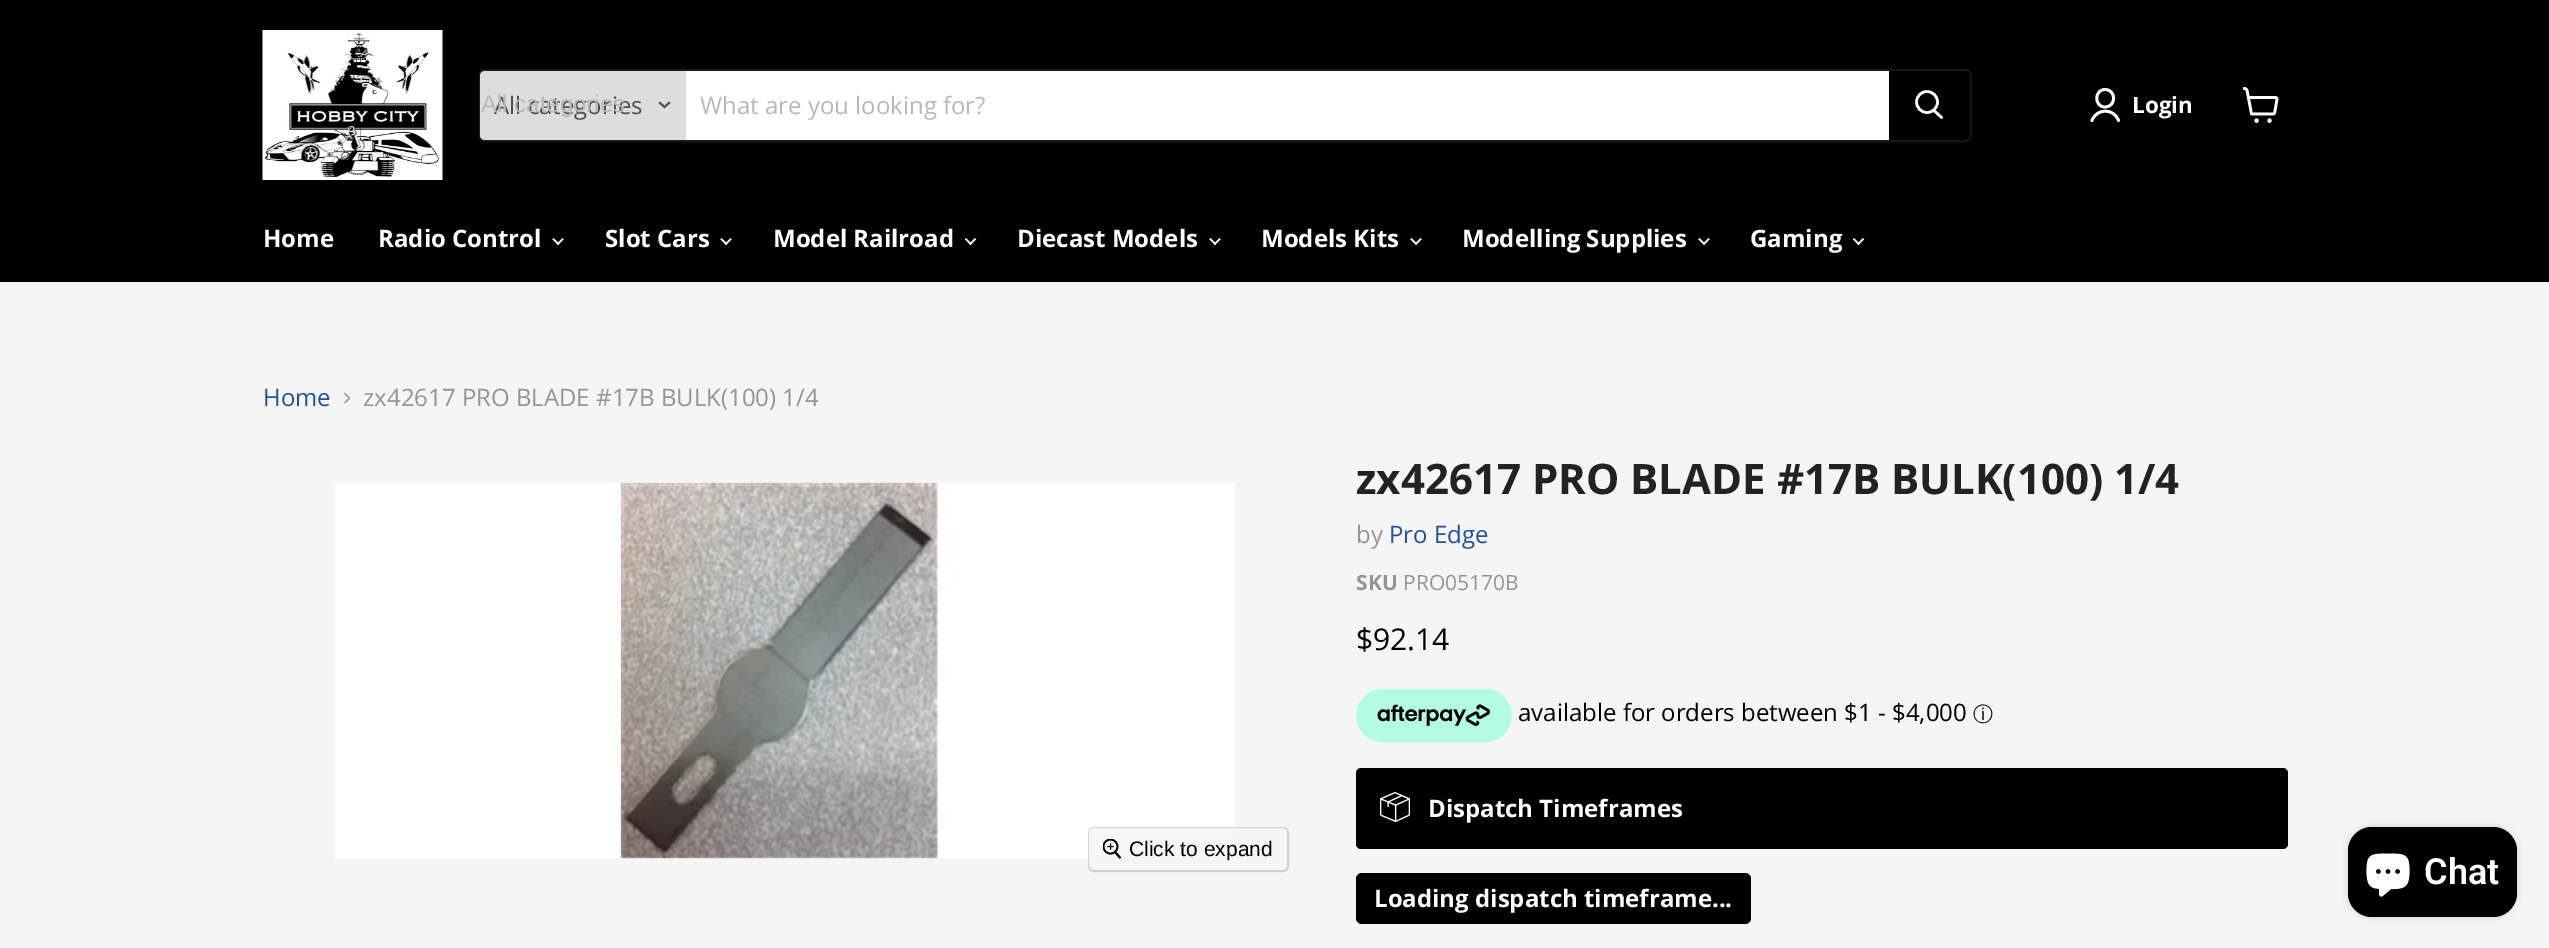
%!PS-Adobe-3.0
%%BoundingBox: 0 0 2549 948
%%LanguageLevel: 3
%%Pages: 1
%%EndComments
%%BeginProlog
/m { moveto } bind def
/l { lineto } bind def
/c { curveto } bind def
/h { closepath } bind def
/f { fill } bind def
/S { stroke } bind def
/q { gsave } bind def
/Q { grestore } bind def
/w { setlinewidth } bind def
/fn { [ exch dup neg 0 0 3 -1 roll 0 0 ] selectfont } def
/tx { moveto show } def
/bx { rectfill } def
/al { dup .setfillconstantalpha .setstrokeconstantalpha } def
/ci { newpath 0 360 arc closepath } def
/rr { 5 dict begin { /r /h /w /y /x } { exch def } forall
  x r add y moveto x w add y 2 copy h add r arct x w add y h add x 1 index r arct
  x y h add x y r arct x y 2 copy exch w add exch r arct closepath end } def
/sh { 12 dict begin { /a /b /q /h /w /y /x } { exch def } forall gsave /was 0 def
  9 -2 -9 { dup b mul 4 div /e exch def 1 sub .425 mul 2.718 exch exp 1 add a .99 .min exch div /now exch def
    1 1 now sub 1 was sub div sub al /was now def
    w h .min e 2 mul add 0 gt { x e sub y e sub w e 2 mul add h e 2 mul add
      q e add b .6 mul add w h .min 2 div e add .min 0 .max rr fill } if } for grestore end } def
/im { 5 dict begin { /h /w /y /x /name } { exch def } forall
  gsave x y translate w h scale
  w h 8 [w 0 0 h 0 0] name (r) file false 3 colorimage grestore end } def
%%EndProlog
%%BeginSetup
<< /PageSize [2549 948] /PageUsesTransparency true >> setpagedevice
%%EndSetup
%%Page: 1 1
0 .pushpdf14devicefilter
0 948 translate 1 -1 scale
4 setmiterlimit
0.961 setgray
0 0 2549 948 bx
0 setgray
0 0 2549 282 bx
(image0.raw) 262 30 181 150 im
0.482 setgray
479 72 1492 72 6 2 0.11 sh
0.2 al
2 w
480 70 1490 70 5 rr S
1 al
0.867 setgray
485 71 m 686 71 l 686 140 l 485 140 l 482 140 480 138 480 135 c 480 76 l 480 73 482 71 485 71 c h f
/OpenSans-Regular 24 fn
0.302 setgray
(All categories) 494 114 tx
q
482 92 202 27 rectclip
/LiberationSans-Regular 24 fn
0.722 setgray
(All categories) 481 112 tx
Q
1.9 w
2 setlinecap
664.5 107 m 669 103 l 664.5 107 m 660 103 l S
1 setgray
686 71 1203 69 bx
q
701 89 1173 33 rectclip
0.722 setgray
(What are you looking for?) 700 114 tx
Q
0 setgray
1890 72 m 1965 72 l 1967 72 1969 74 1969 76 c 1969 135 l 1969 137 1967 139 1965 139 c 1890 139 l h q f Q
2 w
0 setlinecap
S
1 setgray
2.6 w
1 setlinecap
1941.5 117.5 m 1934 110.5 l S
0 setlinecap
1927 102 10.5 ci S
2.8 w
1 setlinecap
1 setlinejoin
2105 107 m 2116.5 107 2116.5 89.5 2105 89.5 c 2094 89.5 2094 107 2105 107 c h 2118.5 120.5 m 2114 108 2096.5 108 2092 120.5 c S
/OpenSans-Bold 22.5 fn
(Login) 2132 113 tx
(image1.raw) 2243 87 36 36 im
/OpenSans-Bold 24 fn
(Home) 263 247 tx
(Radio Control) 378 247 tx
(image2.raw) 552 238 12 7 im
(Slot Cars) 605 247 tx
(image2.raw) 720 238 12 7 im
(Model Railroad) 773 247 tx
(image3.raw) 965 238 12 7 im
(Diecast Models) 1017 247 tx
(image2.raw) 1209 238 12 7 im
(Models Kits) 1261 247 tx
(image2.raw) 1410 238 12 7 im
(Modelling Supplies) 1462 247 tx
(image2.raw) 1698 238 12 7 im
(Gaming) 1750 247 tx
(image3.raw) 1853 238 12 7 im
/OpenSans-Regular 24 fn
0.129 0.322 0.631 setrgbcolor
(Home) 263 406 tx
(image4.raw) 344 392 7 12 im
0.58 setgray
(zx42617 PRO BLADE #17B BULK\(100\) 1/4) 363 406 tx
(image5.raw) 334 482 901 377 im
0.15 al
0 setgray
2 w
0 setlinecap
0 setlinejoin
1089 828 199 43 5 rr S
0.9 al
0.961 setgray
1089 828 198 42 5 rr f
1 al
(image6.raw) 1103 839 19 20 im
/LiberationSans-Regular 21 fn
0 setgray
(Click to expand) 1129 856 tx
/OpenSans-Bold 42 fn
0.133 setgray
(zx42617 PRO BLADE #17B BULK\(100\) 1/4) 1356 494 tx
/OpenSans-Regular 24 fn
0.58 setgray
(by) 1356 543 tx
0.129 0.322 0.631 setrgbcolor
(Pro Edge) 1389 543 tx
/OpenSans-Bold 21 fn
0.58 setgray
(SKU) 1356 590 tx
/OpenSans-Regular 21 fn
(PRO05170B) 1403 590 tx
/OpenSans-Regular 30 fn
0 setgray
($92.14) 1356 650 tx
(image7.raw) 1356 689 156 54 im
/OpenSans-Regular 24 fn
(available for orders between $1 - $4,000) 1518 721 tx
/WenQuanYiZenHei-Medium 20 fn
(ⓘ) 1973 721 tx
1356 768 932 81 5 rr f
(image8.raw) 1380 792 30 30 im
/OpenSans-Bold 24 fn
1 setgray
(Dispatch Timeframes) 1428 817 tx
0 setgray
1356 873 395 51 6 rr f
1 setgray
(Loading dispatch timeframe...) 1374 907 tx
0 setgray
2348 827 169 90 24 4 0.15 sh
2348 827 169 90 24 rr f
(image9.raw) 2366 853 44 44 im
/Roboto-SemiBold 36 fn
1 setgray
(Chat) 2424 884 tx
.poppdf14devicefilter showpage
%%EOF
